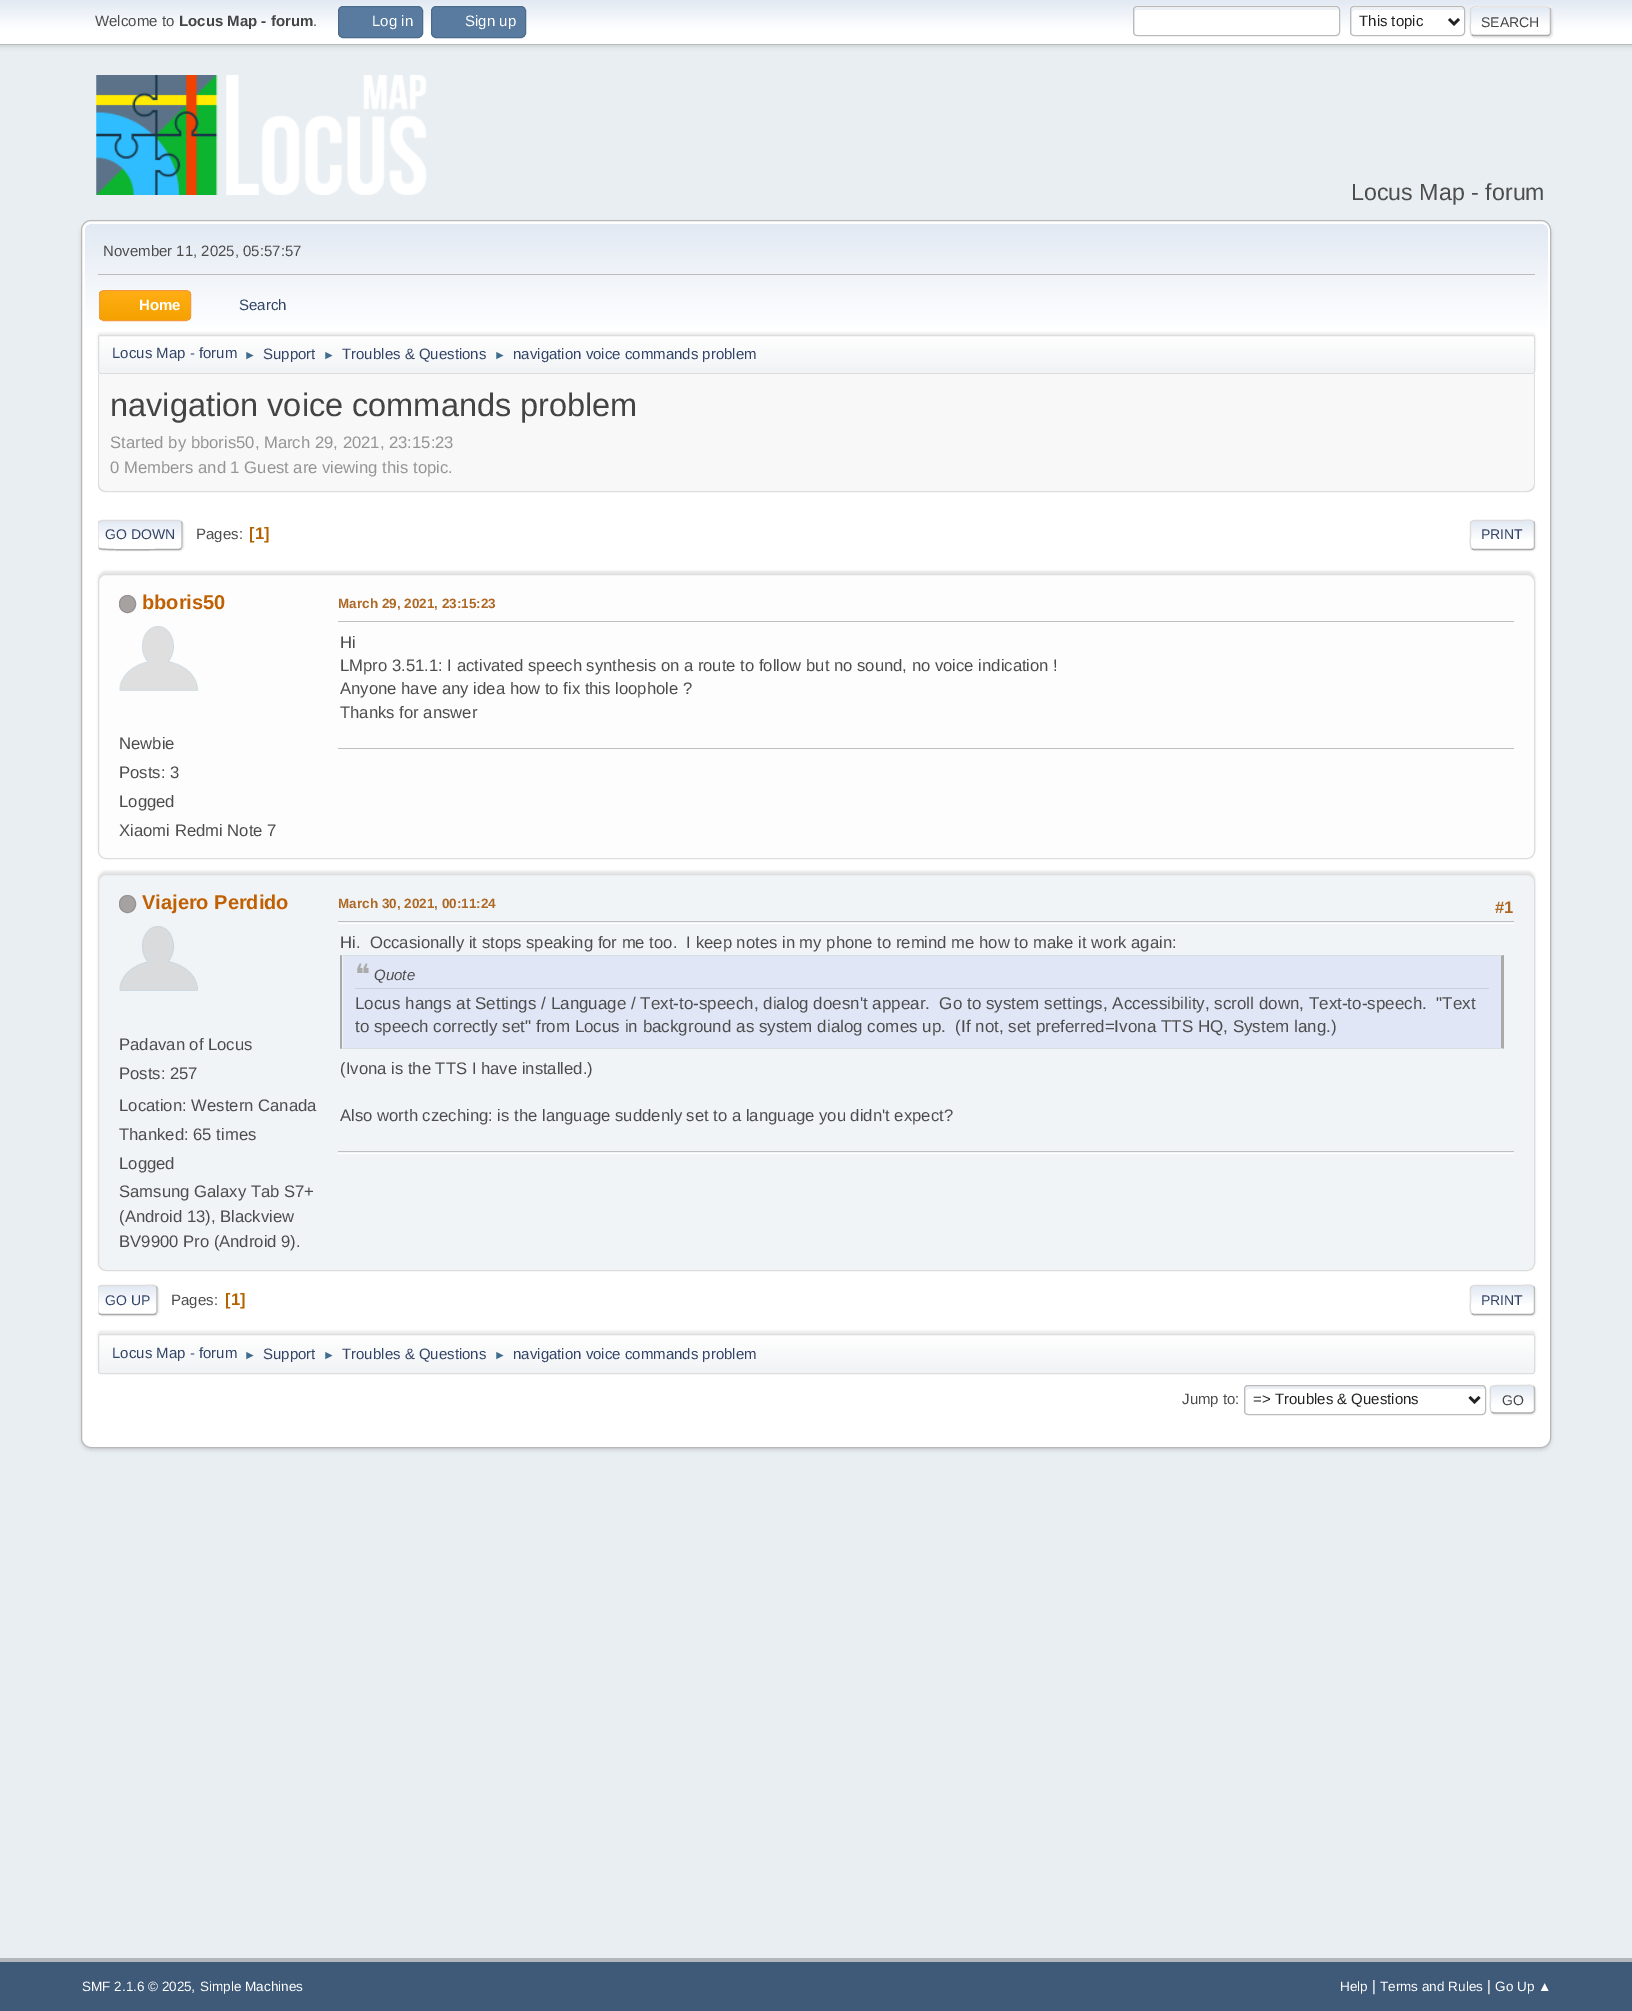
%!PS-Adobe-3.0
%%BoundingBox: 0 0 1632 2011
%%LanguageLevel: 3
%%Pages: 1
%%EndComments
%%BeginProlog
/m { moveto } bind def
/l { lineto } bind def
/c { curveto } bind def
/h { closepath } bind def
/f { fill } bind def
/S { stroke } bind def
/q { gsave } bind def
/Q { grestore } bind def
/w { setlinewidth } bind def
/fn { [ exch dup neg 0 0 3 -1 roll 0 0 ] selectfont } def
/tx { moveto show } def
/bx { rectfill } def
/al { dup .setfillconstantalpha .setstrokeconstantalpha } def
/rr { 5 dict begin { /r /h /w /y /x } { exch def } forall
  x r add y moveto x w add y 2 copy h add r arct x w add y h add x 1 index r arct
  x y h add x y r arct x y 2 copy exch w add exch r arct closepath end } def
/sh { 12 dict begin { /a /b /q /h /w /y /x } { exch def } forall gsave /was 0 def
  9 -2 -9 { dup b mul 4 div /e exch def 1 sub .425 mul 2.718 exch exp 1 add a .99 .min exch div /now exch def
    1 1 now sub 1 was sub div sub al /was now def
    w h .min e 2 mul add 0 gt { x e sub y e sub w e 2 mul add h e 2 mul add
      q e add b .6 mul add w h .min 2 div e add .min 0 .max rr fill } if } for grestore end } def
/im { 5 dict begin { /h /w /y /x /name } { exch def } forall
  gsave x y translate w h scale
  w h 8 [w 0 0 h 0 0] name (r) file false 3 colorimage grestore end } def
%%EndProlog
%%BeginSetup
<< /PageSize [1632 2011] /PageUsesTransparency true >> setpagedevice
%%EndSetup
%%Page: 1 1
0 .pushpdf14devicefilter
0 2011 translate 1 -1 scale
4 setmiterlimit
0.914 0.933 0.949 setrgbcolor
0 0 1632 2011 bx
0 setgray
0 1 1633 45 0 2.5 0.16 sh
q 0 0 m 1632 0 l 1632 44 l 0 44 l h clip newpath
<< /ShadingType 2 /ColorSpace /DeviceRGB /Coords [816 0 816 44] /Extend [true true] /Function << /FunctionType 3 /Domain [0 1] /Functions [<< /FunctionType 2 /Domain [0 1] /C0 [0.886 0.914 0.953] /C1 [1 1 1] /N 1 >> << /FunctionType 2 /Domain [0 1] /C0 [1 1 1] /C1 [1 1 1] /N 1 >>] /Bounds [0.7] /Encode [0 1 0 1] >> >> shfill Q
0.733 setgray
0 44 1632 1 bx
/LiberationSans-Regular 15 fn
0.302 setgray
(Welcome to) 95 26 tx
/LiberationSans-Bold 15 fn
0.267 setgray
(Locus Map - forum) 179 26 tx
/LiberationSans-Regular 15 fn
0.302 setgray
(.) 313 26 tx
0.349 0.482 0.624 setrgbcolor
338.5 6.5 84 31 4.5 rr q f Q
0.29 0.42 0.549 setrgbcolor
S
1 setgray
(Log in) 372 26 tx
0.349 0.482 0.624 setrgbcolor
431.5 6.5 94 31 4.5 rr q f Q
0.29 0.42 0.549 setrgbcolor
S
1 setgray
(Sign up) 465 26 tx
1133 6 207 30 4 rr f
0.925 0.945 0.973 setrgbcolor
1138 10 m 1339 10 l 1339 9 1338 8 1336 8 c 1136 8 l 1135 8 1134 9 1134 10 c 1134 32 l 1134 33 1134 34 1135 35 c 1135 12 l 1135 11 1136 10 1138 10 c h f
0.733 setgray
1133.5 6.5 206 29 3.5 rr S
1 setgray
1350 6 115 30 4 rr f
0.925 0.945 0.973 setrgbcolor
1355 10 m 1462 10 l 1464 10 l 1464 9 1463 8 1462 8 c 1354 8 l 1352 8 1351 9 1351 10 c 1351 32 l 1351 33 1351 34 1352 35 c 1352 12 l 1352 11 1354 10 1355 10 c h f
0.733 setgray
1350.5 6.5 114 29 3.5 rr S
0.133 setgray
2.5 w
1449 19 m 1454 24 l 1459 19 l S
(This topic) 1359 26 tx
0.867 setgray
1471 8 82 30 4 0.5 0.57 sh
q
1470 6 81 30 4 rr clip newpath
q 1470 6 m 1551 6 l 1551 8 l 1470 8 l h clip newpath
<< /ShadingType 2 /ColorSpace /DeviceRGB /Coords [1511 -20 1511 7.5] /Extend [true true] /Function << /FunctionType 3 /Domain [0 1] /Functions [<< /FunctionType 2 /Domain [0 1] /C0 [0.886 0.914 0.953] /C1 [1 1 1] /N 1 >> << /FunctionType 2 /Domain [0 1] /C0 [1 1 1] /C1 [1 1 1] /N 1 >>] /Bounds [0.7] /Encode [0 1 0 1] >> >> shfill Q
q 1470 8 m 1551 8 l 1551 35 l 1470 35 l h clip newpath
<< /ShadingType 2 /ColorSpace /DeviceRGB /Coords [1511 7.5 1511 35] /Extend [true true] /Function << /FunctionType 3 /Domain [0 1] /Functions [<< /FunctionType 2 /Domain [0 1] /C0 [0.886 0.914 0.953] /C1 [1 1 1] /N 1 >> << /FunctionType 2 /Domain [0 1] /C0 [1 1 1] /C1 [1 1 1] /N 1 >>] /Bounds [0.7] /Encode [0 1 0 1] >> >> shfill Q
Q
0.733 setgray
1.2 w
1549.5 8 m 1550.5 8.5 1550.5 9 1550.5 10 c 1550.5 32.5 l 1550.5 33.5 1550.5 34 1549.5 34.5 c S
0.667 setgray
1549.5 34.5 m 1548 35.5 l 1473.5 35.5 l 1471.5 34.5 l S
0.867 setgray
1471.5 34.5 m 1469.5 32.5 1470.5 24 1470.5 21 c 1470.5 4 1468 7 1486 7 c 1547.5 7 l 1549.5 8 l S
/LiberationSans-Regular 14 fn
0.267 setgray
(SEARCH) 1481 27 tx
(image0.raw) 96 75 331 120 im
/LiberationSans-Regular 23.25 fn
0.302 setgray
(Locus Map - forum) 1351 200 tx
0 setgray
81 223 1470 1227 10 2 0.14 sh
1 setgray
81.5 220.5 1469 1227 9.5 rr q f Q
0.722 setgray
1 w
S
q 93 224 m 1540 224 l 1544.5 224 1548 227.5 1548 232 c 1548 376 l 85 376 l 85 232 l 85 227.5 88.5 224 93 224 c h clip newpath
<< /ShadingType 2 /ColorSpace /DeviceRGB /Coords [816 224 816 376] /Extend [true true] /Function << /FunctionType 3 /Domain [0 1] /Functions [<< /FunctionType 2 /Domain [0 1] /C0 [0.886 0.914 0.953] /C1 [1 1 1] /N 1 >> << /FunctionType 2 /Domain [0 1] /C0 [1 1 1] /C1 [1 1 1] /N 1 >>] /Bounds [0.7] /Encode [0 1 0 1] >> >> shfill Q
0.733 setgray
98 274 1437 1 bx
/LiberationSans-Regular 15 fn
0.302 setgray
(November 11, 2025, 05:57:57) 103 256 tx
q
99 290 92 31 5 rr clip newpath
q 99 291 m 191 291 l 191 320 l 99 320 l h clip newpath
<< /ShadingType 2 /ColorSpace /DeviceRGB /Coords [145 291 145 320] /Extend [true true] /Function << /FunctionType 2 /Domain [0 1] /C0 [1 0.682 0.078] /C1 [0.961 0.631 0] /N 1 >> >> shfill Q
Q
0.957 0.604 0.227 setrgbcolor
99.5 290.5 91 30 4.5 rr S
/LiberationSans-Bold 15 fn
1 setgray
(Home) 139 310 tx
/LiberationSans-Regular 15 fn
0.2 0.267 0.4 setrgbcolor
(Search) 239 310 tx
0 setgray
98 333 1437 38 2.5 1 0.08 sh
q
98 335 1437 39 2.5 rr clip newpath
q 98 336 m 1535 336 l 1535 373 l 98 373 l h clip newpath
<< /ShadingType 2 /ColorSpace /DeviceRGB /Coords [816 336 816 373] /Extend [true true] /Function << /FunctionType 3 /Domain [0 1] /Functions [<< /FunctionType 2 /Domain [0 1] /C0 [1 1 1] /C1 [0.945 0.953 0.961] /N 1 >> << /FunctionType 2 /Domain [0 1] /C0 [0.945 0.953 0.961] /C1 [0.945 0.953 0.961] /N 1 >>] /Bounds [0.95] /Encode [0 1 0 1] >> >> shfill Q
Q
0.867 setgray
98.5 335.5 1436 38 2 rr S
0.2 0.267 0.4 setrgbcolor
(Locus Map - forum) 112 358 tx
/LiberationSans-Regular 12 fn
0.247 0.42 0.549 setrgbcolor
(►) 244 359 tx
/LiberationSans-Regular 15 fn
0.2 0.267 0.4 setrgbcolor
(Support) 263 359 tx
/LiberationSans-Regular 12 fn
0.247 0.42 0.549 setrgbcolor
(►) 323 359 tx
/LiberationSans-Regular 15 fn
0.2 0.267 0.4 setrgbcolor
(Troubles & Questions) 342 359 tx
/LiberationSans-Regular 12 fn
0.247 0.42 0.549 setrgbcolor
(►) 494 359 tx
/LiberationSans-Regular 15 fn
0.2 0.267 0.4 setrgbcolor
(navigation voice commands problem) 513 359 tx
0.973 setgray
98 374 m 1535 374 l 1535 484 l 1535 489 1531 493 1526 493 c 107 493 l 102 493 98 489 98 484 c h f
0.867 setgray
98 374 m 1535 374 l 1535 484 l 1535 489 1531 492 1526 492 c 106 492 l 101 492 98 489 98 484 c h 99 374 m 1534 374 l 1534 484 l 1534 488 1530 491 1526 491 c 106 491 l 102 491 99 488 99 484 c h eofill
/LiberationSans-Regular 32.5 fn
0.267 setgray
(navigation voice commands problem) 110 416 tx
/LiberationSans-Regular 16.67 fn
0.584 setgray
(Started by bboris50, March 29, 2021, 23:15:23) 110 448 tx
(0 Members and 1 Guest are viewing this topic.) 110 473 tx
0.867 setgray
99 521 85 30 4 0.5 0.57 sh
1 setgray
98 520 85 30 4 rr f
q
98 520 85 30 4 rr clip newpath
q 98 521 m 183 521 l 183 549 l 98 549 l h clip newpath
<< /ShadingType 2 /ColorSpace /DeviceRGB /Coords [140 521 140 549] /Extend [true true] /Function << /FunctionType 3 /Domain [0 1] /Functions [<< /FunctionType 2 /Domain [0 1] /C0 [0.886 0.914 0.953] /C1 [1 1 1] /N 1 >> << /FunctionType 2 /Domain [0 1] /C0 [1 1 1] /C1 [1 1 1] /N 1 >>] /Bounds [0.7] /Encode [0 1 0 1] >> >> shfill Q
q 98 549 m 183 549 l 183 550 l 98 550 l h clip newpath
<< /ShadingType 2 /ColorSpace /DeviceRGB /Coords [140 549 140 576] /Extend [true true] /Function << /FunctionType 3 /Domain [0 1] /Functions [<< /FunctionType 2 /Domain [0 1] /C0 [0.886 0.914 0.953] /C1 [1 1 1] /N 1 >> << /FunctionType 2 /Domain [0 1] /C0 [1 1 1] /C1 [1 1 1] /N 1 >>] /Bounds [0.7] /Encode [0 1 0 1] >> >> shfill Q
Q
0.733 setgray
1.2 w
181 521.5 m 181.5 522 182 523 182 524 c 182 546 l 182 547 181.5 548 181 548.5 c S
0.667 setgray
181 548.5 m 179 549.5 l 166 549.5 l 158.5 549.5 101.5 550.5 99.5 548.5 c 99 548.5 l S
q
98 511 1437 48 rectclip
0.867 setgray
99 548.5 m 97 546 98 541.5 98 539 c 98 518.5 94 520.5 114 520.5 c 179 520.5 l 181 521.5 l S
Q
/LiberationSans-Regular 14 fn
0.2 0.267 0.4 setrgbcolor
(GO DOWN) 105 539 tx
/LiberationSans-Regular 15 fn
0.302 setgray
(Pages:) 196 539 tx
/LiberationSans-Bold 16.67 fn
0.706 0.38 0 setrgbcolor
([1]) 249 539 tx
0.867 setgray
1471 521 65 30 4 0.5 0.57 sh
1 setgray
1470 520 65 30 4 rr f
q
1470 520 65 30 4 rr clip newpath
q 1470 521 m 1535 521 l 1535 549 l 1470 549 l h clip newpath
<< /ShadingType 2 /ColorSpace /DeviceRGB /Coords [1503 521 1503 549] /Extend [true true] /Function << /FunctionType 3 /Domain [0 1] /Functions [<< /FunctionType 2 /Domain [0 1] /C0 [0.886 0.914 0.953] /C1 [1 1 1] /N 1 >> << /FunctionType 2 /Domain [0 1] /C0 [1 1 1] /C1 [1 1 1] /N 1 >>] /Bounds [0.7] /Encode [0 1 0 1] >> >> shfill Q
Q
q
98 511 1437 48 rectclip
0.733 setgray
1533.5 521.5 m 1534 522 1534.5 523 1534.5 524 c 1534.5 546 l 1534.5 547 1534 548 1533.5 548.5 c S
Q
0.667 setgray
1533.5 548.5 m 1531.5 549.5 l 1473.5 549.5 l 1471.5 548.5 l S
0.867 setgray
1471.5 548.5 m 1469.5 546.5 1470.5 537.5 1470.5 535 c 1470.5 519 1468 520.5 1483.5 520.5 c 1521.5 520.5 l 1525.5 520.5 1530 519 1533 521.5 c 1533.5 521.5 l S
/LiberationSans-Regular 14 fn
0.2 0.267 0.4 setrgbcolor
(PRINT) 1481 539 tx
0 setgray
98 571 1437 285 8 1 0.1 sh
0.992 setgray
98.5 574.5 1436 284 7.5 rr q f Q
0.867 setgray
1 w
S
0.655 0.635 0.635 setrgbcolor
119.5 595.5 16 17 8 rr q f Q
0.588 0.573 0.573 setrgbcolor
S
/LiberationSans-Bold 20 fn
0.753 0.376 0.008 setrgbcolor
(bboris50) 142 609 tx
(image1.raw) 119 626 79 65 im
/LiberationSans-Regular 16.67 fn
0.302 setgray
(Newbie) 119 749 tx
(Posts: 3) 119 778 tx
(Logged) 119 807 tx
(Xiaomi Redmi Note 7) 119 836 tx
/LiberationSans-Bold 13.5 fn
0.678 0.408 0.145 setrgbcolor
(March 29, 2021, 23:15:23) 338 608 tx
0.749 setgray
338 621 1176 1 bx
/LiberationSans-Regular 16.67 fn
0.302 setgray
(Hi) 340 648 tx
(LMpro 3.51.1: I activated speech synthesis on a route to follow but no sound, no voice indication !) 340 671 tx
(Anyone have any idea how to fix this loophole ?) 340 694 tx
(Thanks for answer) 340 718 tx
0.749 setgray
338 748 1176 1 bx
0 setgray
98 871 1437 398 8 1 0.1 sh
0.941 0.957 0.969 setrgbcolor
98.5 874.5 1436 396 7.5 rr q f Q
0.867 setgray
S
0.655 0.635 0.635 setrgbcolor
119.5 895.5 16 17 8 rr q f Q
0.588 0.573 0.573 setrgbcolor
S
/LiberationSans-Bold 20 fn
0.753 0.376 0.008 setrgbcolor
(Viajero Perdido) 142 909 tx
(image2.raw) 119 926 79 65 im
/LiberationSans-Regular 16.67 fn
0.302 setgray
(Padavan of Locus) 119 1050 tx
(Posts: 257) 119 1079 tx
(Location: Western Canada) 119 1111 tx
(Thanked: 65 times) 119 1140 tx
(Logged) 119 1169 tx
(Samsung Galaxy Tab S7+) 119 1197 tx
(\(Android 13\), Blackview) 119 1222 tx
(BV9900 Pro \(Android 9\).) 119 1247 tx
/LiberationSans-Bold 13.5 fn
0.678 0.408 0.145 setrgbcolor
(March 30, 2021, 00:11:24) 338 908 tx
/LiberationSans-Bold 16.67 fn
(#1) 1495 913 tx
1 setgray
338 923 1176 1 bx
0.749 setgray
338 921 1176 1 bx
/LiberationSans-Regular 16.67 fn
0.302 setgray
(Hi.  Occasionally it stops speaking for me too.  I keep notes in my phone to remind me how to make it work again:) 340 948 tx
0.878 0.902 0.965 setrgbcolor
343 956 1158 92 bx
0.839 0.875 0.886 setrgbcolor
340 955 m 1504 955 l 1501 956 l 342 956 l h f
0.667 setgray
1504 955 m 1504 1049 l 1501 1048 l 1501 956 l h f
0.839 0.875 0.886 setrgbcolor
1504 1049 m 340 1049 l 342 1048 l 1501 1048 l h f
0.667 setgray
340 1049 m 340 955 l 342 956 l 342 1048 l h f
0.792 0.812 0.867 setrgbcolor
355 988 1134 1 bx
/DejaVuSans-Regular 28 fn
0.667 setgray
(❝) 355 984 tx
/LiberationSans-Italic 15 fn
0.302 setgray
(Quote) 374 980 tx
/LiberationSans-Regular 17 fn
(Locus hangs at Settings / Language / Text-to-speech, dialog doesn't appear.  Go to system settings, Accessibility, scroll down, Text-to-speech.  "Text) 355 1009 tx
(to speech correctly set" from Locus in background as system dialog comes up.  \(If not, set preferred=Ivona TTS HQ, System lang.\)) 355 1032 tx
/LiberationSans-Regular 16.67 fn
(\(Ivona is the TTS I have installed.\)) 340 1074 tx
(Also worth czeching: is the language suddenly set to a language you didn't expect?) 340 1121 tx
1 setgray
338 1153 1176 1 bx
0.749 setgray
338 1151 1176 1 bx
0.867 setgray
99 1286 60 30 4 0.5 0.57 sh
1 setgray
98 1285 60 30 4 rr f
q
98 1285 60 30 4 rr clip newpath
q 98 1286 m 158 1286 l 158 1314 l 98 1314 l h clip newpath
<< /ShadingType 2 /ColorSpace /DeviceRGB /Coords [128 1286 128 1314] /Extend [true true] /Function << /FunctionType 3 /Domain [0 1] /Functions [<< /FunctionType 2 /Domain [0 1] /C0 [0.886 0.914 0.953] /C1 [1 1 1] /N 1 >> << /FunctionType 2 /Domain [0 1] /C0 [1 1 1] /C1 [1 1 1] /N 1 >>] /Bounds [0.7] /Encode [0 1 0 1] >> >> shfill Q
q 98 1314 m 158 1314 l 158 1315 l 98 1315 l h clip newpath
<< /ShadingType 2 /ColorSpace /DeviceRGB /Coords [128 1314 128 1341] /Extend [true true] /Function << /FunctionType 3 /Domain [0 1] /Functions [<< /FunctionType 2 /Domain [0 1] /C0 [0.886 0.914 0.953] /C1 [1 1 1] /N 1 >> << /FunctionType 2 /Domain [0 1] /C0 [1 1 1] /C1 [1 1 1] /N 1 >>] /Bounds [0.7] /Encode [0 1 0 1] >> >> shfill Q
Q
0.733 setgray
1.2 w
156 1286.5 m 156.5 1287 157 1288 157 1289 c 157 1311 l 157 1312 156.5 1313 156 1313.5 c S
0.667 setgray
156 1313.5 m 154 1314.5 l 101 1314.5 l 99 1313.5 l S
q
98 1276 1437 48 rectclip
0.867 setgray
99 1313.5 m 97 1311.5 98 1302.5 98 1300 c 98 1284.5 95 1285.5 110 1285.5 c 145 1285.5 l 145 1285.5 153.5 1284 156 1286.5 c S
Q
/LiberationSans-Regular 14 fn
0.2 0.267 0.4 setrgbcolor
(GO UP) 105 1305 tx
/LiberationSans-Regular 15 fn
0.302 setgray
(Pages:) 171 1305 tx
/LiberationSans-Bold 16.67 fn
0.706 0.38 0 setrgbcolor
([1]) 225 1305 tx
0.867 setgray
1471 1286 65 30 4 0.5 0.57 sh
1 setgray
1470 1285 65 30 4 rr f
q
1470 1285 65 30 4 rr clip newpath
q 1470 1286 m 1535 1286 l 1535 1314 l 1470 1314 l h clip newpath
<< /ShadingType 2 /ColorSpace /DeviceRGB /Coords [1503 1286 1503 1314] /Extend [true true] /Function << /FunctionType 3 /Domain [0 1] /Functions [<< /FunctionType 2 /Domain [0 1] /C0 [0.886 0.914 0.953] /C1 [1 1 1] /N 1 >> << /FunctionType 2 /Domain [0 1] /C0 [1 1 1] /C1 [1 1 1] /N 1 >>] /Bounds [0.7] /Encode [0 1 0 1] >> >> shfill Q
Q
q
98 1276 1437 48 rectclip
0.733 setgray
1533.5 1286.5 m 1534 1287 1534.5 1288 1534.5 1289 c 1534.5 1311 l 1534.5 1312 1534 1313 1533.5 1313.5 c S
Q
0.667 setgray
1533.5 1313.5 m 1531.5 1314.5 l 1473.5 1314.5 l 1471.5 1313.5 l S
0.867 setgray
1471.5 1313.5 m 1469.5 1311.5 1470.5 1302.5 1470.5 1300 c 1470.5 1284 1468 1285.5 1483.5 1285.5 c 1521.5 1285.5 l 1525.5 1285.5 1530 1284 1533 1286.5 c 1533.5 1286.5 l S
/LiberationSans-Regular 14 fn
0.2 0.267 0.4 setrgbcolor
(PRINT) 1481 1305 tx
0 setgray
98 1331 1437 40 2.5 1 0.08 sh
q
98 1334 1437 40 2.5 rr clip newpath
q 98 1335 m 1535 1335 l 1535 1373 l 98 1373 l h clip newpath
<< /ShadingType 2 /ColorSpace /DeviceRGB /Coords [816 1335 816 1373] /Extend [true true] /Function << /FunctionType 3 /Domain [0 1] /Functions [<< /FunctionType 2 /Domain [0 1] /C0 [1 1 1] /C1 [0.945 0.953 0.961] /N 1 >> << /FunctionType 2 /Domain [0 1] /C0 [0.945 0.953 0.961] /C1 [0.945 0.953 0.961] /N 1 >>] /Bounds [0.95] /Encode [0 1 0 1] >> >> shfill Q
Q
0.867 setgray
1 w
98.5 1334.5 1436 39 2 rr S
/LiberationSans-Regular 15 fn
0.2 0.267 0.4 setrgbcolor
(Locus Map - forum) 112 1358 tx
/LiberationSans-Regular 12 fn
0.247 0.42 0.549 setrgbcolor
(►) 244 1359 tx
/LiberationSans-Regular 15 fn
0.2 0.267 0.4 setrgbcolor
(Support) 263 1359 tx
/LiberationSans-Regular 12 fn
0.247 0.42 0.549 setrgbcolor
(►) 323 1359 tx
/LiberationSans-Regular 15 fn
0.2 0.267 0.4 setrgbcolor
(Troubles & Questions) 342 1359 tx
/LiberationSans-Regular 12 fn
0.247 0.42 0.549 setrgbcolor
(►) 494 1359 tx
/LiberationSans-Regular 15 fn
0.2 0.267 0.4 setrgbcolor
(navigation voice commands problem) 513 1359 tx
0.302 setgray
(Jump to:) 1182 1404 tx
0.925 0.945 0.973 setrgbcolor
1249 1389 m 1485 1389 l 1485 1388 1485 1387 1483 1386 c 1248 1386 l 1244 1386 1245 1390 1245 1392 c 1245 1400 l 1245 1402 1244 1412 1246 1414 c 1246 1391 l 1246 1390 1247 1389 1249 1389 c h f
0.733 setgray
1244.5 1385.5 241 29 3.5 rr S
0.133 setgray
2.5 w
1469.5 1397 m 1474.5 1402 l 1479.5 1397 l S
(=> Troubles & Questions) 1253 1404 tx
0.867 setgray
1491 1386 45 29 4 0.5 0.57 sh
1 setgray
1490 1385 45 29 4 rr f
q
1490 1385 45 29 4 rr clip newpath
q 1490 1386 m 1535 1386 l 1535 1413 l 1490 1413 l h clip newpath
<< /ShadingType 2 /ColorSpace /DeviceRGB /Coords [1513 1386 1513 1413] /Extend [true true] /Function << /FunctionType 3 /Domain [0 1] /Functions [<< /FunctionType 2 /Domain [0 1] /C0 [0.886 0.914 0.953] /C1 [1 1 1] /N 1 >> << /FunctionType 2 /Domain [0 1] /C0 [1 1 1] /C1 [1 1 1] /N 1 >>] /Bounds [0.7] /Encode [0 1 0 1] >> >> shfill Q
q 1490 1413 m 1535 1413 l 1535 1414 l 1490 1414 l h clip newpath
<< /ShadingType 2 /ColorSpace /DeviceRGB /Coords [1513 1413 1513 1439] /Extend [true true] /Function << /FunctionType 3 /Domain [0 1] /Functions [<< /FunctionType 2 /Domain [0 1] /C0 [0.886 0.914 0.953] /C1 [1 1 1] /N 1 >> << /FunctionType 2 /Domain [0 1] /C0 [1 1 1] /C1 [1 1 1] /N 1 >>] /Bounds [0.7] /Encode [0 1 0 1] >> >> shfill Q
Q
0.733 setgray
1.2 w
1533.5 1386.5 m 1534 1387 1534.5 1388 1534.5 1389 c 1534.5 1410 l 1534.5 1411 1534 1411.5 1533.5 1412 c S
0.667 setgray
1533.5 1412 m 1531 1413 l 1494 1413 l 1491.5 1412 l S
0.867 setgray
1491.5 1412 m 1489.5 1410 1490.5 1402 1490.5 1399.5 c 1490.5 1386.5 1488 1385.5 1500 1385.5 c 1525 1385.5 l 1526.5 1385.5 1531.5 1384.5 1533.5 1386.5 c S
/LiberationSans-Regular 14 fn
0.267 setgray
(GO) 1502 1405 tx
0.243 0.353 0.471 setrgbcolor
0 1962 1632 49 bx
0.698 0.714 0.741 setrgbcolor
0 1958 1632 4 bx
/LiberationSans-Regular 13.5 fn
1 setgray
(SMF 2.1.6 © 2025) 82 1991 tx
/LiberationSans-Regular 15 fn
(,) 191 1991 tx
/LiberationSans-Regular 13.5 fn
(Simple Machines) 200 1991 tx
(Help) 1340 1991 tx
/LiberationSans-Regular 15 fn
(|) 1372 1991 tx
/LiberationSans-Regular 13.5 fn
(Terms and Rules) 1380 1991 tx
/LiberationSans-Regular 15 fn
(|) 1487 1991 tx
/LiberationSans-Regular 13.5 fn
(Go Up ▲) 1495 1991 tx
.poppdf14devicefilter showpage
%%EOF
